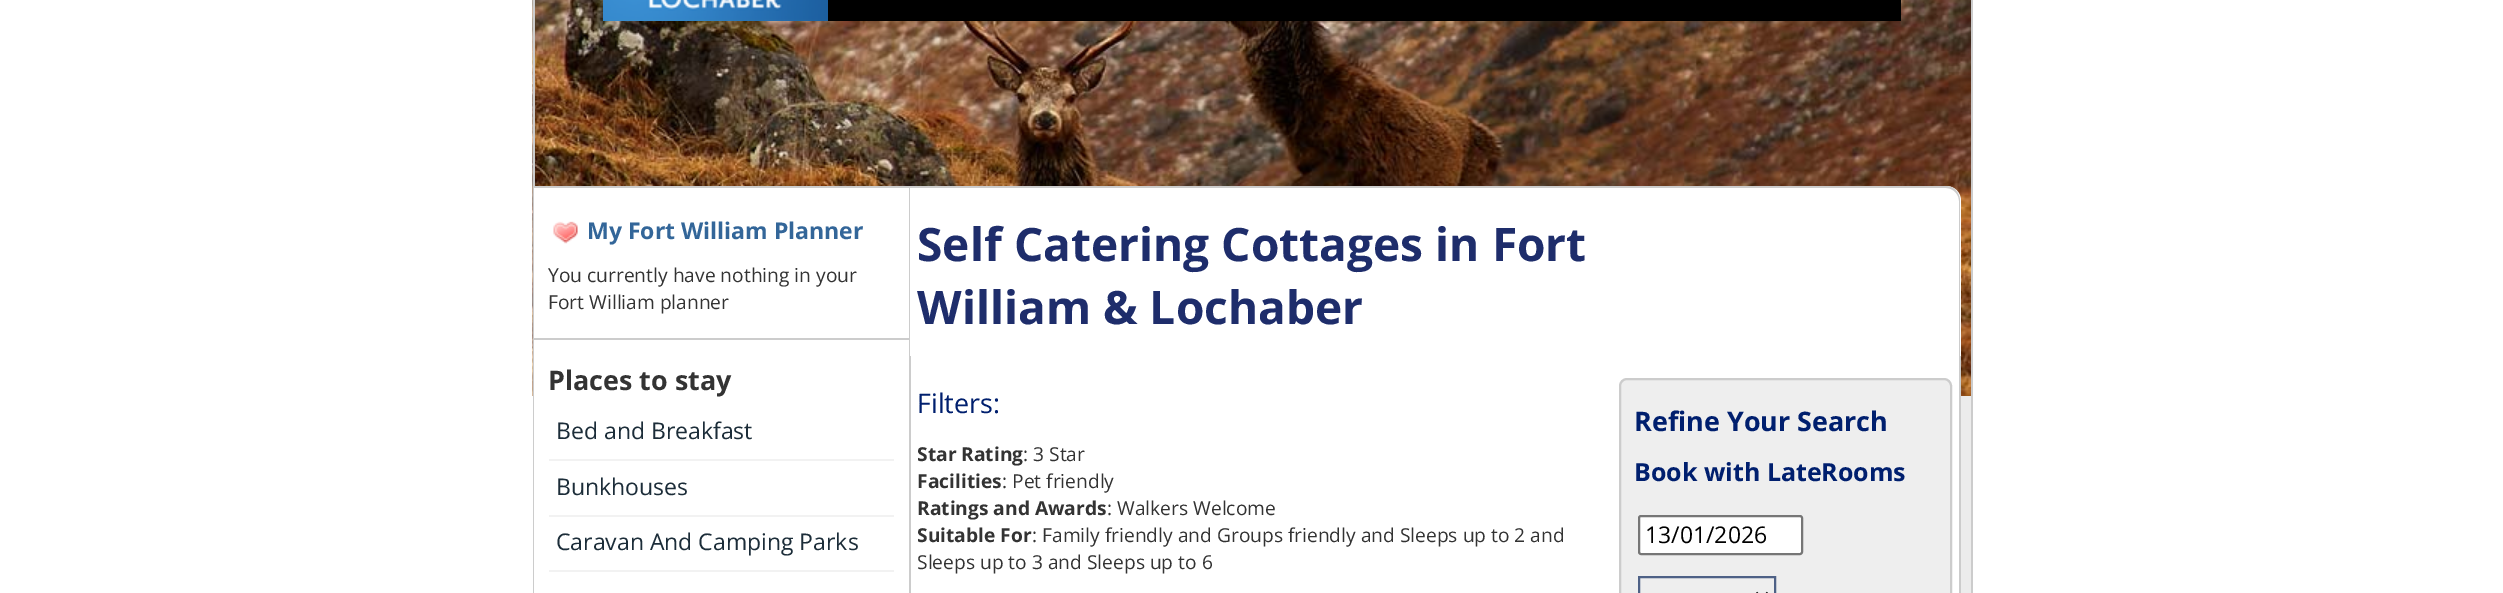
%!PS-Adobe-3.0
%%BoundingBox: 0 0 2503 593
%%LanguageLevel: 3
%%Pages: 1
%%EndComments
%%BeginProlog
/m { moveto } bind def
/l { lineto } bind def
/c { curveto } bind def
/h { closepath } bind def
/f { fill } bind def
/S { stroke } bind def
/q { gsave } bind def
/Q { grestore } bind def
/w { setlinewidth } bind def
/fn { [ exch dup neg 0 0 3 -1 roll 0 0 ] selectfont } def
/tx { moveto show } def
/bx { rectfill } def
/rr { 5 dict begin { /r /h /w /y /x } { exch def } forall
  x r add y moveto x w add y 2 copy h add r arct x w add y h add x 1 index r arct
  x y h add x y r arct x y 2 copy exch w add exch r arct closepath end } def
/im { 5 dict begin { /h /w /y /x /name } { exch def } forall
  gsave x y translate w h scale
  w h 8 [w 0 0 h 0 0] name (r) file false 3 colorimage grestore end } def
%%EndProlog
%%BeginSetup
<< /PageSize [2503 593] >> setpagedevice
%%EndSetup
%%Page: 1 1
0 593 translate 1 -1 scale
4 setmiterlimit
1 setgray
0 0 2503 593 bx
(image1.raw) 532 0 1439 396 im
(image0.raw) 603 0 225 21 im
0 setgray
828 0 1073 21 bx
0.925 setgray
1961 396 10 197 bx
0.8 setgray
1971 0 2 593 bx
533 0 2 593 bx
1 setgray
534 188 375 150 bx
0.8 setgray
534 186 375 2 bx
(image2.raw) 553 221 25 23 im
/OpenSans-Bold 23 fn
0.2 0.4 0.6 setrgbcolor
(My Fort William Planner) 587 239 tx
/OpenSans-Regular 19.2 fn
0.2 setgray
(You currently have nothing in your) 548 282 tx
(Fort William planner) 548 309 tx
1 setgray
534 340 375 253 bx
0.8 setgray
534 338 375 2 bx
/OpenSans-Bold 26.9 fn
0.2 setgray
(Places to stay) 548 390 tx
0.949 setgray
549 459 345 2 bx
/OpenSans-Regular 23 fn
0.11 0.176 0.224 setrgbcolor
(Bed and Breakfast) 556 439 tx
0.949 setgray
549 515 345 2 bx
0.11 0.176 0.224 setrgbcolor
(Bunkhouses) 556 495 tx
0.949 setgray
549 570 345 2 bx
0.11 0.176 0.224 setrgbcolor
(Caravan And Camping Parks) 556 550 tx
1 setgray
909 186 m 1946 186 l 1954.5 186 1961 192.5 1961 201 c 1961 356 l 909 356 l h f
0.8 setgray
909 186 m 1946 186 l 1954 186 1960 193 1960 201 c 1960 356 l 909 356 l h 910 188 m 1946 188 l 1953 188 1959 194 1959 201 c 1959 356 l 910 356 l h eofill
/OpenSans-Bold 46.1 fn
0.118 0.176 0.42 setrgbcolor
(Self Catering Cottages in Fort) 917 261 tx
(William & Lochaber) 917 324 tx
1 setgray
911 356 1048 40 bx
0.8 setgray
1959 356 2 237 bx
909 356 2 237 bx
/OpenSans-Regular 26.9 fn
0 0.122 0.431 setrgbcolor
(Filters:) 917 413 tx
/OpenSans-Bold 19.2 fn
0.2 setgray
(Star Rating) 917 461 tx
/OpenSans-Regular 19.2 fn
(: 3 Star) 1023 461 tx
/OpenSans-Bold 19.2 fn
(Facilities) 917 488 tx
/OpenSans-Regular 19.2 fn
(: Pet friendly) 1002 488 tx
/OpenSans-Bold 19.2 fn
(Ratings and Awards) 917 515 tx
/OpenSans-Regular 19.2 fn
(: Walkers Welcome) 1107 515 tx
/OpenSans-Bold 19.2 fn
(Suitable For) 917 542 tx
/OpenSans-Regular 19.2 fn
(: Family friendly and Groups friendly and Sleeps up to 2 and) 1032 542 tx
(Sleeps up to 3 and Sleeps up to 6) 917 569 tx
0.933 setgray
1620 379 331 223 7 rr q f Q
0.8 setgray
2 w
S
/OpenSans-Bold 26.9 fn
0 0.122 0.431 setrgbcolor
(Refine Your Search) 1634 431 tx
/OpenSans-Bold 25 fn
(Book with LateRooms) 1634 481 tx
1 setgray
1639 516 163 38 2 rr q f Q
0.463 setgray
S
/OpenSans-Regular 23 fn
0 setgray
(13/01/2026) 1645 543 tx
0.306 0.38 0.525 setrgbcolor
1639 577 136 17 rectstroke
0 setgray
3 w
1756 593 m 1762 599 l 1768 593 l S
showpage
%%EOF
